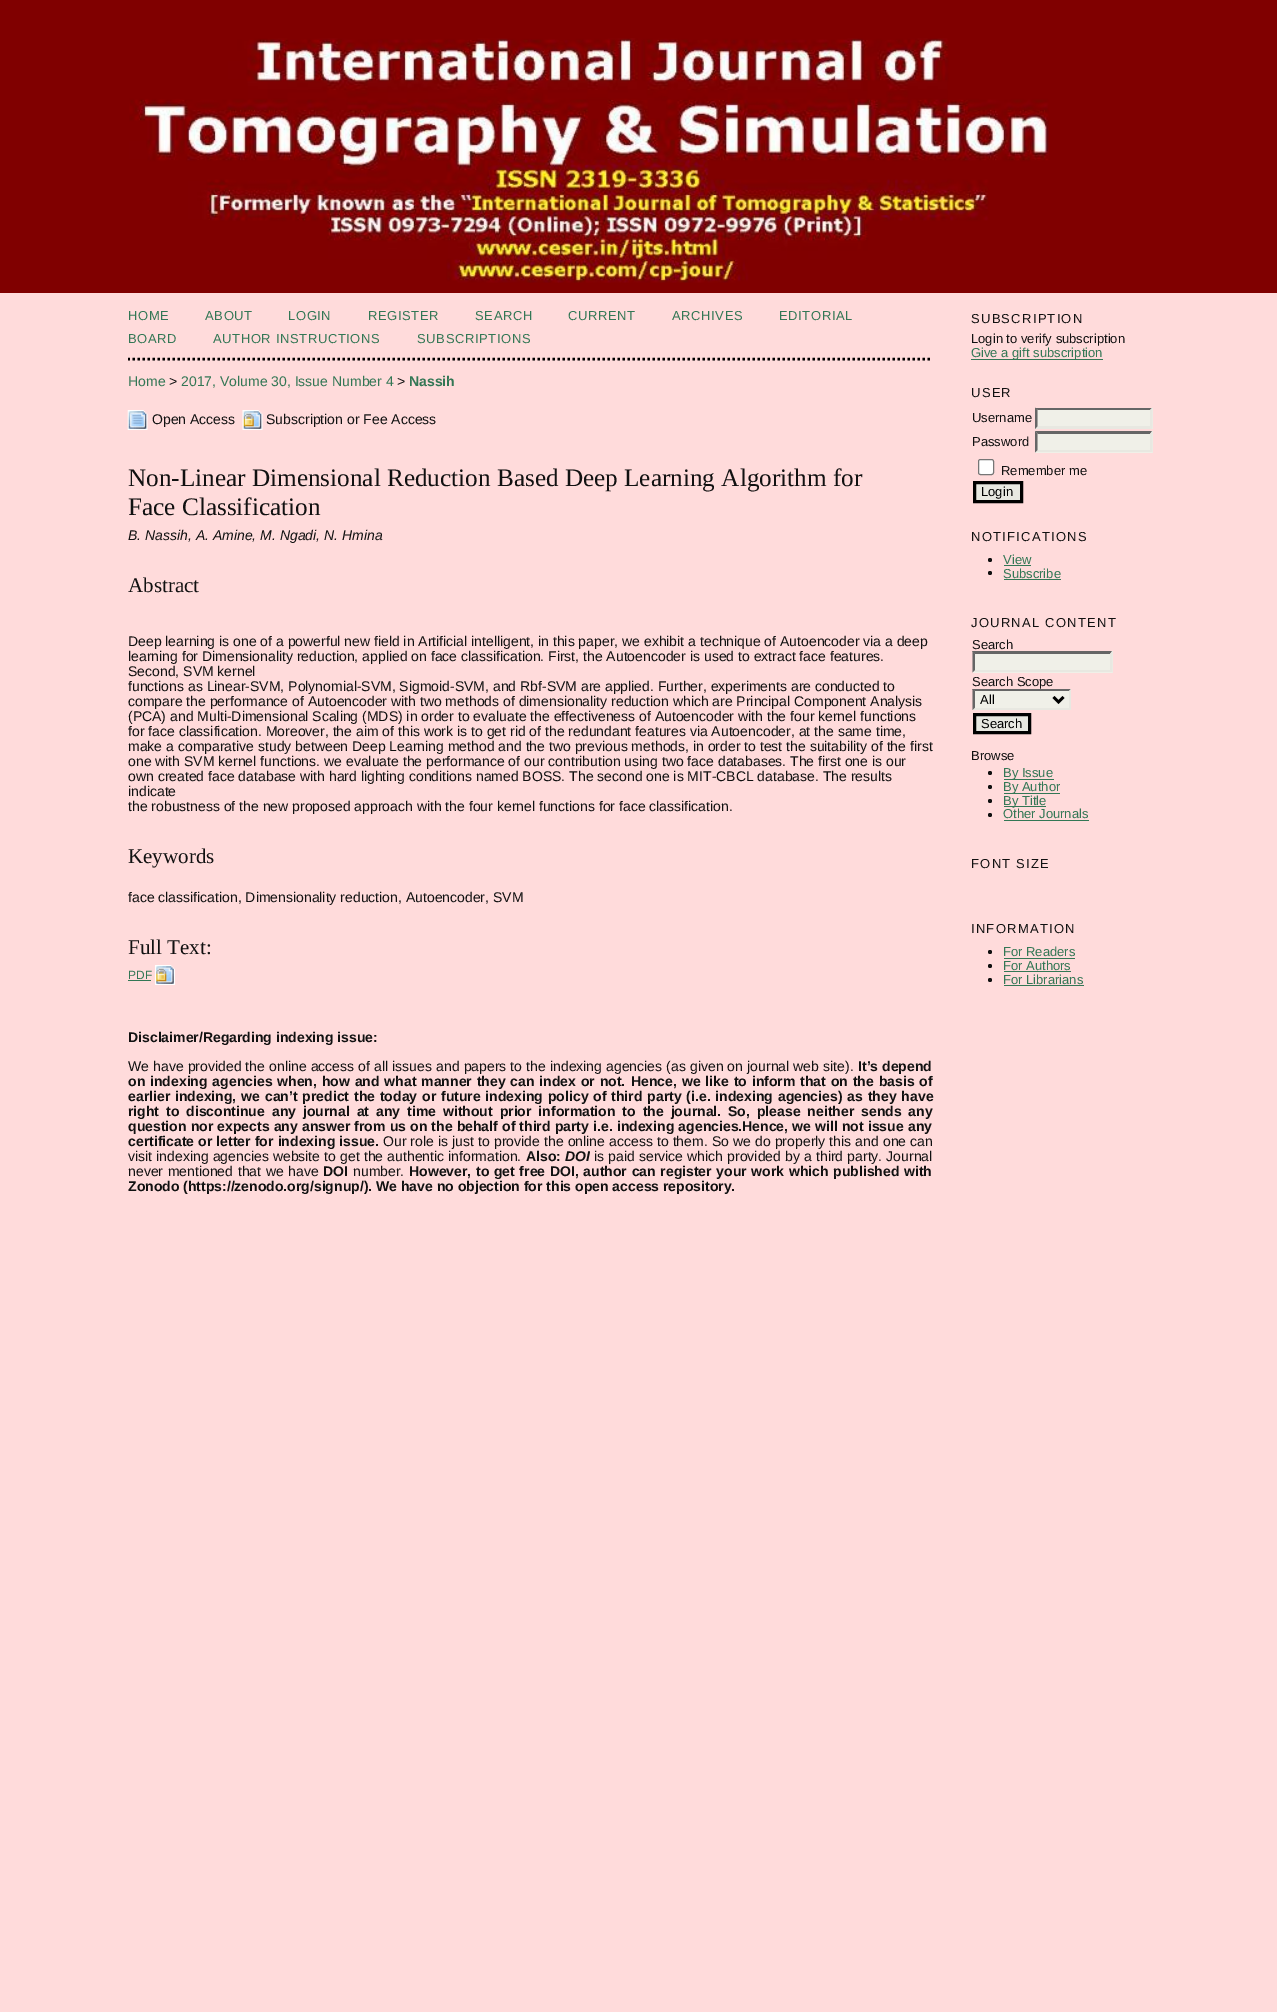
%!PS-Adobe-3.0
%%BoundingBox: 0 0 1277 2012
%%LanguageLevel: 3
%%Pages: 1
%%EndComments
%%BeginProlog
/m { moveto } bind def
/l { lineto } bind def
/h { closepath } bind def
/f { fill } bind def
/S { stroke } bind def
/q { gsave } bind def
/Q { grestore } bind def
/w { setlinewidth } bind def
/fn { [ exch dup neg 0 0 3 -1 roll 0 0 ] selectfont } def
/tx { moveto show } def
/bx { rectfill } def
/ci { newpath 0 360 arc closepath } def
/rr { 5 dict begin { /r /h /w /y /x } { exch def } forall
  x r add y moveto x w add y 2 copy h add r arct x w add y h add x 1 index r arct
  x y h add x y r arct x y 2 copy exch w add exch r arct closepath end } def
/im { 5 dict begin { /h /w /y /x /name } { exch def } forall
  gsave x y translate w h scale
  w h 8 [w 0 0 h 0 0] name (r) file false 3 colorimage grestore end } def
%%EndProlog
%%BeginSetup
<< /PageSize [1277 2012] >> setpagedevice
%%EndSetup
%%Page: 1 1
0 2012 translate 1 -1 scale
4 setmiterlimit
1 0.859 0.859 setrgbcolor
0 0 1277 2012 bx
0.502 0 0 setrgbcolor
0 0 1277 293 bx
(image0.raw) 129 38 920 245 im
q
128 293 805 955 rectclip
0 setgray
2.5 w
[2.5 2.5] 0 setdash
127.5 359 m 932.5 359 l S
Q
/LiberationSans-Regular 13 fn
0.2 0.467 0.333 setrgbcolor
128 320 m 0.6 0 (HOME) ashow
205 320 m 0.6 0 (ABOUT) ashow
288 320 m 0.6 0 (LOGIN) ashow
368 320 m 0.6 0 (REGISTER) ashow
475 320 m 0.6 0 (SEARCH) ashow
568 320 m 0.6 0 (CURRENT) ashow
672 320 m 0.6 0 (ARCHIVES) ashow
779 320 m 0.6 0 (EDITORIAL) ashow
128 343 m 0.6 0 (BOARD) ashow
213 343 m 0.6 0 (AUTHOR INSTRUCTIONS) ashow
417 343 m 0.6 0 (SUBSCRIPTIONS) ashow
/LiberationSans-Regular 14 fn
(Home) 128 386 tx
0.067 setgray
(>) 169 386 tx
0.2 0.467 0.333 setrgbcolor
(2017, Volume 30, Issue Number 4) 181 386 tx
0.067 setgray
(>) 397 386 tx
/LiberationSans-Bold 14 fn
0.2 0.467 0.333 setrgbcolor
(Nassih) 409 386 tx
(image1.raw) 127 410 21 20 im
/LiberationSans-Regular 14 fn
0.067 setgray
(Open Access) 152 424 tx
(image2.raw) 242 410 21 20 im
(Subscription or Fee Access) 266 424 tx
/LiberationSerif-Regular 25.2 fn
(Non-Linear Dimensional Reduction Based Deep Learning Algorithm for) 128 486 tx
(Face Classification) 128 515 tx
/LiberationSans-Italic 14 fn
(B. Nassih, A. Amine, M. Ngadi, N. Hmina) 128 540 tx
/LiberationSerif-Regular 21 fn
(Abstract) 128 592 tx
/LiberationSans-Regular 14 fn
(Deep learning is one of a powerful new field in Artificial intelligent, in this paper, we exhibit a technique of Autoencoder via a deep) 128 646 tx
(learning for Dimensionality reduction, applied on face classification. First, the Autoencoder is used to extract face features.) 128 661 tx
(Second, SVM kernel) 128 676 tx
(functions as Linear-SVM, Polynomial-SVM, Sigmoid-SVM, and Rbf-SVM are applied. Further, experiments are conducted to) 128 691 tx
(compare the performance of Autoencoder with two methods of dimensionality reduction which are Principal Component Analysis) 128 706 tx
(\(PCA\) and Multi-Dimensional Scaling \(MDS\) in order to evaluate the effectiveness of Autoencoder with the four kernel functions) 128 721 tx
(for face classification. Moreover, the aim of this work is to get rid of the redundant features via Autoencoder, at the same time,) 128 736 tx
(make a comparative study between Deep Learning method and the two previous methods, in order to test the suitability of the first) 128 751 tx
(one with SVM kernel functions. we evaluate the performance of our contribution using two face databases. The first one is our) 128 766 tx
(own created face database with hard lighting conditions named BOSS. The second one is MIT-CBCL database. The results) 128 781 tx
(indicate) 128 796 tx
(the robustness of the new proposed approach with the four kernel functions for face classification.) 128 811 tx
/LiberationSerif-Regular 21 fn
(Keywords) 128 863 tx
/LiberationSans-Regular 14 fn
(face classification, Dimensionality reduction, Autoencoder, SVM) 128 902 tx
/LiberationSerif-Regular 21 fn
(Full Text:) 128 954 tx
/LiberationSans-Regular 12 fn
0.2 0.467 0.333 setrgbcolor
(PDF) 128 979 tx
128 980 23 1 bx
(image3.raw) 155 965 20 20 im
/LiberationSans-Bold 14 fn
0.067 setgray
(Disclaimer/Regarding indexing issue:) 128 1042 tx
/LiberationSans-Regular 14 fn
128 1071 m 0.25 0 32 (We have provided the online access of all issues and papers to the indexing agencies \(as given on journal web site\).) widthshow
/LiberationSans-Bold 14 fn
(It’s depend) 858 1071 tx
128 1086 m 1 0 32 (on indexing agencies when, how and what manner they can index or not.) widthshow
631 1086 m 1 0 32 (Hence, we like to inform that on the basis of) widthshow
128 1101 m 1 0 32 (earlier indexing, we can’t predict the today or future indexing policy of third party \(i.e. indexing agencies\) as they have) widthshow
128 1116 m 3.1 0 32 (right to discontinue any journal at any time without prior information to the journal.) widthshow
728 1116 m 3.1 0 32 (So, please neither sends any) widthshow
128 1131 m 0.3 0 32 (question nor expects any answer from us on the behalf of third party i.e. indexing agencies.Hence, we will not issue any) widthshow
128 1146 m 0.25 0 32 (certificate or letter for indexing issue.) widthshow
/LiberationSans-Regular 14 fn
383 1146 m 0.25 0 32 (Our role is just to provide the online access to them. So we do properly this and one can) widthshow
128 1161 m 0.25 0 32 (visit indexing agencies website to get the authentic information.) widthshow
/LiberationSans-Bold 14 fn
(Also:) 526 1161 tx
/LiberationSans-BoldItalic 14 fn
(DOI) 565 1161 tx
/LiberationSans-Regular 14 fn
594 1161 m 0.25 0 32 (is paid service which provided by a third party. Journal) widthshow
128 1176 m 0.8 0 32 (never mentioned that we have) widthshow
/LiberationSans-Bold 14 fn
(DOI) 323 1176 tx
/LiberationSans-Regular 14 fn
(number.) 353 1176 tx
/LiberationSans-Bold 14 fn
409 1176 m 0.8 0 32 (However, to get free DOI, author can register your work which published with) widthshow
(Zonodo \(https://zenodo.org/signup/\). We have no objection for this open access repository.) 128 1191 tx
/LiberationSans-Regular 13 fn
971 323 m 1.25 0 (SUBSCRIPTION) ashow
(Login to verify subscription) 971 343 tx
0.2 0.467 0.333 setrgbcolor
971 359 132 1 bx
(Give a gift subscription) 971 357 tx
0.067 setgray
971 397 m 1.25 0 (USER) ashow
(Username) 972 422 tx
0.941 0.941 0.91 setrgbcolor
1035 408 118 21 bx
0.4 setgray
1035 408 m 1152 408 l 1150 410 l 1038 410 l h f
0.91 0.91 0.882 setrgbcolor
1152.5 407.5 m 1152.5 429 l 1150 426 l 1150 410 l h f
1152 429 m 1035 429 l 1038 426 l 1150 426 l h f
0.4 setgray
1035 429 m 1035 407.5 l 1037.5 410 l 1037.5 426 l h f
0.067 setgray
(Password) 972 446 tx
0.941 0.941 0.91 setrgbcolor
1035 431 118 22 bx
0.4 setgray
1035 431 m 1152 431 l 1150 434 l 1038 434 l h f
0.91 0.91 0.882 setrgbcolor
1152.5 431 m 1152.5 452.5 l 1150 450 l 1150 434 l h f
1152 452 m 1035 452 l 1038 450 l 1150 450 l h f
0.4 setgray
1035 452.5 m 1035 431 l 1037.5 434 l 1037.5 450 l h f
1 setgray
978.5 459.5 15 15 2 rr q f Q
0.463 setgray
S
0.067 setgray
(Remember me) 1001 475 tx
0.91 0.91 0.882 setrgbcolor
974.5 482.5 m 1021.5 482.5 l 1021.5 501.5 l 974.5 501.5 l h q f Q
0 setgray
3 w
S
(Login) 981 496 tx
0.067 setgray
971 541 m 1.25 0 (NOTIFICATIONS) ashow
990 560 2 ci f
0.2 0.467 0.333 setrgbcolor
(View) 1003 564 tx
1004 565 27 1 bx
0.067 setgray
990 573 2 ci f
0.2 0.467 0.333 setrgbcolor
(Subscribe) 1003 578 tx
1004 579 57 1 bx
0.067 setgray
971 627 m 1.25 0 (JOURNAL CONTENT) ashow
(Search) 972 649 tx
0.941 0.941 0.91 setrgbcolor
973 651 140 22 bx
0.4 setgray
972 651 m 1112 651 l 1110 654 l 975 654 l h f
0.91 0.91 0.882 setrgbcolor
1112.5 651 m 1112.5 672.5 l 1110 670 l 1110 654 l h f
1112 672 m 972 672 l 975 670 l 1110 670 l h f
0.4 setgray
972.5 672.5 m 972.5 651 l 975 654 l 975 670 l h f
0.067 setgray
(Search Scope) 972 686 tx
0.941 0.941 0.91 setrgbcolor
973 689 98 21 bx
0.4 setgray
972 689 m 1071 689 l 1069 691 l 975 691 l h f
0.91 0.91 0.882 setrgbcolor
1071 689 m 1071 710 l 1069 707.5 l 1069 691 l h f
1071 710 m 972 710 l 975 708 l 1069 708 l h f
0.4 setgray
972.5 710 m 972.5 689 l 975 691 l 975 707.5 l h f
0 setgray
2.5 w
1053.5 697 m 1058.5 702 l 1063.5 697 l S
(All) 980 704 tx
0.91 0.91 0.882 setrgbcolor
974.5 714.5 m 1029.5 714.5 l 1029.5 732.5 l 974.5 732.5 l h q f Q
0 setgray
3 w
S
(Search) 981 728 tx
0.067 setgray
(Browse) 971 760 tx
990 773 2 ci f
0.2 0.467 0.333 setrgbcolor
1004 779 50 1 bx
(By Issue) 1003 777 tx
0.067 setgray
990 787 2 ci f
0.2 0.467 0.333 setrgbcolor
1004 793 56 1 bx
(By Author) 1003 791 tx
0.067 setgray
990 801 2 ci f
0.2 0.467 0.333 setrgbcolor
1004 806 42 1 bx
(By Title) 1003 805 tx
0.067 setgray
990 815 2 ci f
0.2 0.467 0.333 setrgbcolor
(Other Journals) 1003 818 tx
1004 820 85 1 bx
0.067 setgray
971 868 m 1.25 0 (FONT SIZE) ashow
971 933 m 1.25 0 (INFORMATION) ashow
990 952 2 ci f
0.2 0.467 0.333 setrgbcolor
(For Readers) 1003 956 tx
1004 958 71 1 bx
0.067 setgray
990 966 2 ci f
0.2 0.467 0.333 setrgbcolor
(For Authors) 1003 970 tx
1004 971 67 1 bx
0.067 setgray
990 980 2 ci f
0.2 0.467 0.333 setrgbcolor
(For Librarians) 1003 984 tx
1004 985 80 1 bx
showpage
%%EOF
